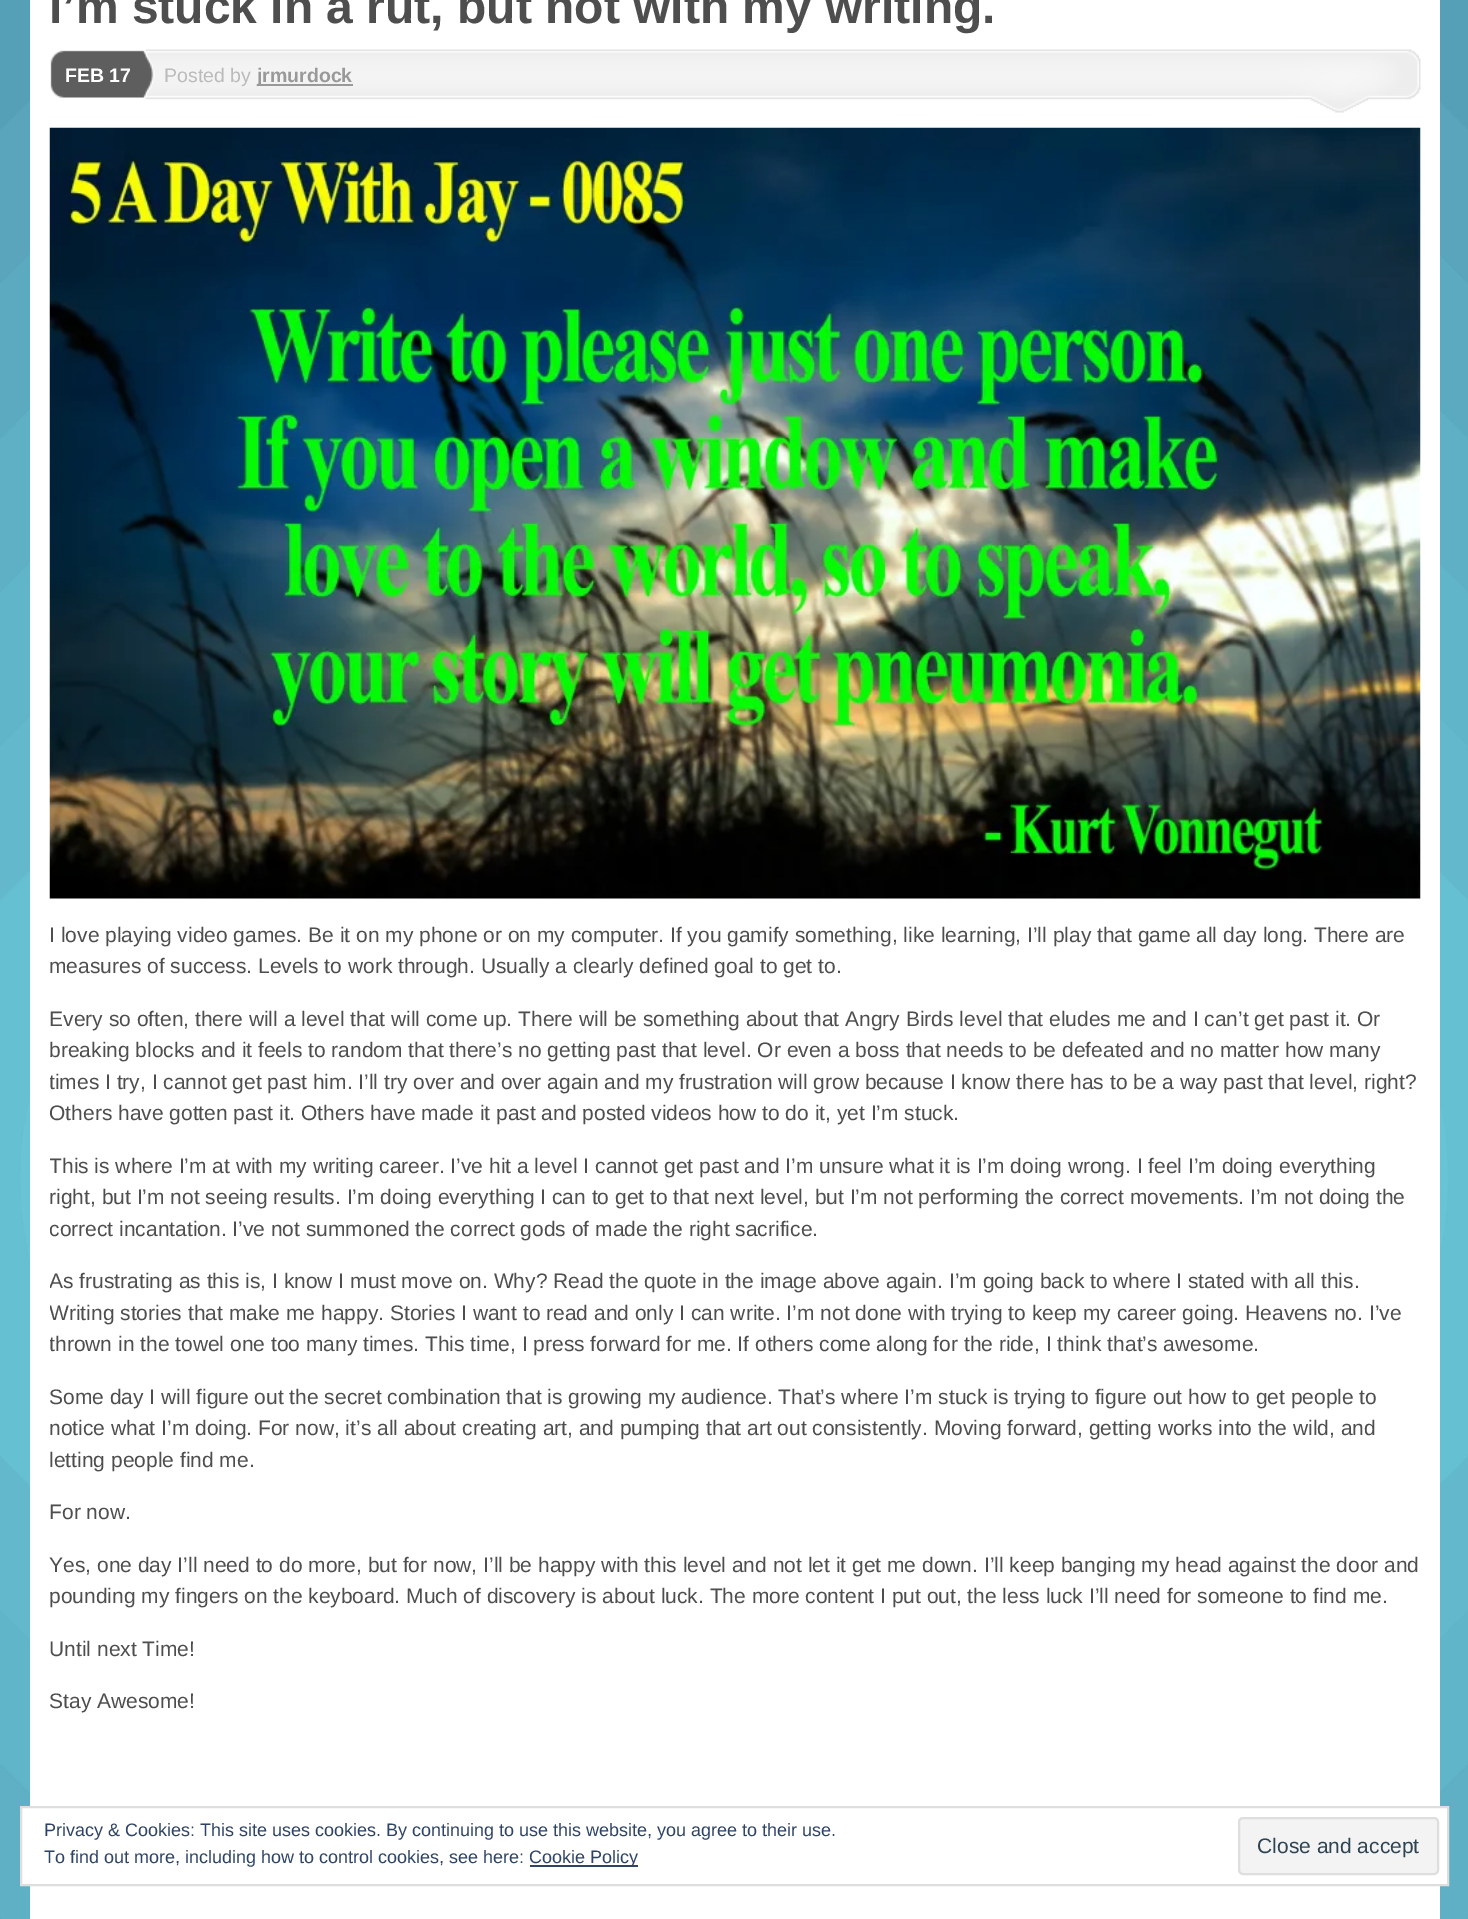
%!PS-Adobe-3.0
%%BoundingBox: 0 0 1468 1919
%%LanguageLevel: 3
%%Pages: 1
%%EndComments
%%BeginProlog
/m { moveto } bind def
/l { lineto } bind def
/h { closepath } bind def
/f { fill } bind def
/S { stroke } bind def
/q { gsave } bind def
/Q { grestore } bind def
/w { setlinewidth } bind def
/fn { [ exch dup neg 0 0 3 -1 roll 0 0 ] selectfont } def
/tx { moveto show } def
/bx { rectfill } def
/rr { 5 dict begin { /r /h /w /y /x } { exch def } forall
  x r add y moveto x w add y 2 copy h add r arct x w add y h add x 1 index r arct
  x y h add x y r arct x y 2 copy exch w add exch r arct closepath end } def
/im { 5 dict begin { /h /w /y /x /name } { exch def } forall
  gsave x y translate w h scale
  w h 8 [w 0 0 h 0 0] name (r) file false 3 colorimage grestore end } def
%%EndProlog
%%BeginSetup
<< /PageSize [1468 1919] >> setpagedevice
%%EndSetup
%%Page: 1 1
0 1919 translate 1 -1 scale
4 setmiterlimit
1 setgray
0 0 1468 1919 bx
(image0.raw) 0 0 1468 1919 im
30 0 1410 1919 bx
/LiberationSans-Bold 48 fn
0.306 setgray
(I’m stuck in a rut, but not with my writing.) 49 23 tx
(image1.raw) 50 50 17 48 im
(image2.raw) 67 49 89 51 im
/LiberationSans-Bold 19.5 fn
1 setgray
(FEB 17) 65 82 tx
(image3.raw) 156 49 1265 64 im
/LiberationSans-Regular 19.5 fn
0.733 setgray
(Posted by) 164 82 tx
0.6 setgray
257 84 96 2 bx
/LiberationSans-Bold 19.5 fn
(jrmurdock) 257 82 tx
(image4.raw) 49 127 1372 772 im
/LiberationSans-Regular 21 fn
0.306 setgray
(I love playing video games. Be it on my phone or on my computer. If you gamify something, like learning, I’ll play that game all day long. There are) 49 942 tx
(measures of success. Levels to work through. Usually a clearly defined goal to get to.) 49 973 tx
(Every so often, there will a level that will come up. There will be something about that Angry Birds level that eludes me and I can’t get past it. Or) 49 1026 tx
(breaking blocks and it feels to random that there’s no getting past that level. Or even a boss that needs to be defeated and no matter how many) 49 1057 tx
q
50 128 1371 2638 rectclip
(times I try, I cannot get past him. I’ll try over and over again and my frustration will grow because I know there has to be a way past that level, right?) 49 1089 tx
(Others have gotten past it. Others have made it past and posted videos how to do it, yet I’m stuck.) 49 1120 tx
(This is where I’m at with my writing career. I’ve hit a level I cannot get past and I’m unsure what it is I’m doing wrong. I feel I’m doing everything) 49 1173 tx
Q
(right, but I’m not seeing results. I’m doing everything I can to get to that next level, but I’m not performing the correct movements. I’m not doing the) 49 1204 tx
q
50 128 1371 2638 rectclip
(correct incantation. I’ve not summoned the correct gods of made the right sacrifice.) 49 1236 tx
(As frustrating as this is, I know I must move on. Why? Read the quote in the image above again. I’m going back to where I stated with all this.) 49 1288 tx
(Writing stories that make me happy. Stories I want to read and only I can write. I’m not done with trying to keep my career going. Heavens no. I’ve) 49 1320 tx
(thrown in the towel one too many times. This time, I press forward for me. If others come along for the ride, I think that’s awesome.) 49 1351 tx
Q
(Some day I will figure out the secret combination that is growing my audience. That’s where I’m stuck is trying to figure out how to get people to) 49 1404 tx
(notice what I’m doing. For now, it’s all about creating art, and pumping that art out consistently. Moving forward, getting works into the wild, and) 49 1435 tx
(letting people find me.) 49 1467 tx
(For now.) 49 1519 tx
(Yes, one day I’ll need to do more, but for now, I’ll be happy with this level and not let it get me down. I’ll keep banging my head against the door and) 49 1572 tx
(pounding my fingers on the keyboard. Much of discovery is about luck. The more content I put out, the less luck I’ll need for someone to find me.) 49 1603 tx
(Until next Time!) 49 1656 tx
(Stay Awesome!) 49 1708 tx
1 setgray
21 1807 m 1448 1807 l 1448 1885 l 21 1885 l h q f Q
0.871 setgray
2 w
S
/LiberationSans-Regular 18 fn
0.18 0.267 0.404 setrgbcolor
(Privacy & Cookies: This site uses cookies. By continuing to use this website, you agree to their use.) 44 1836 tx
(To find out more, including how to control cookies, see here:) 44 1863 tx
530 1865 108 2 bx
(Cookie Policy) 529 1863 tx
0.953 setgray
1239 1818 199 56 4 rr q f Q
0.871 setgray
S
/LiberationSans-Regular 21 fn
0.18 0.267 0.325 setrgbcolor
(Close and accept) 1257 1853 tx
showpage
%%EOF
